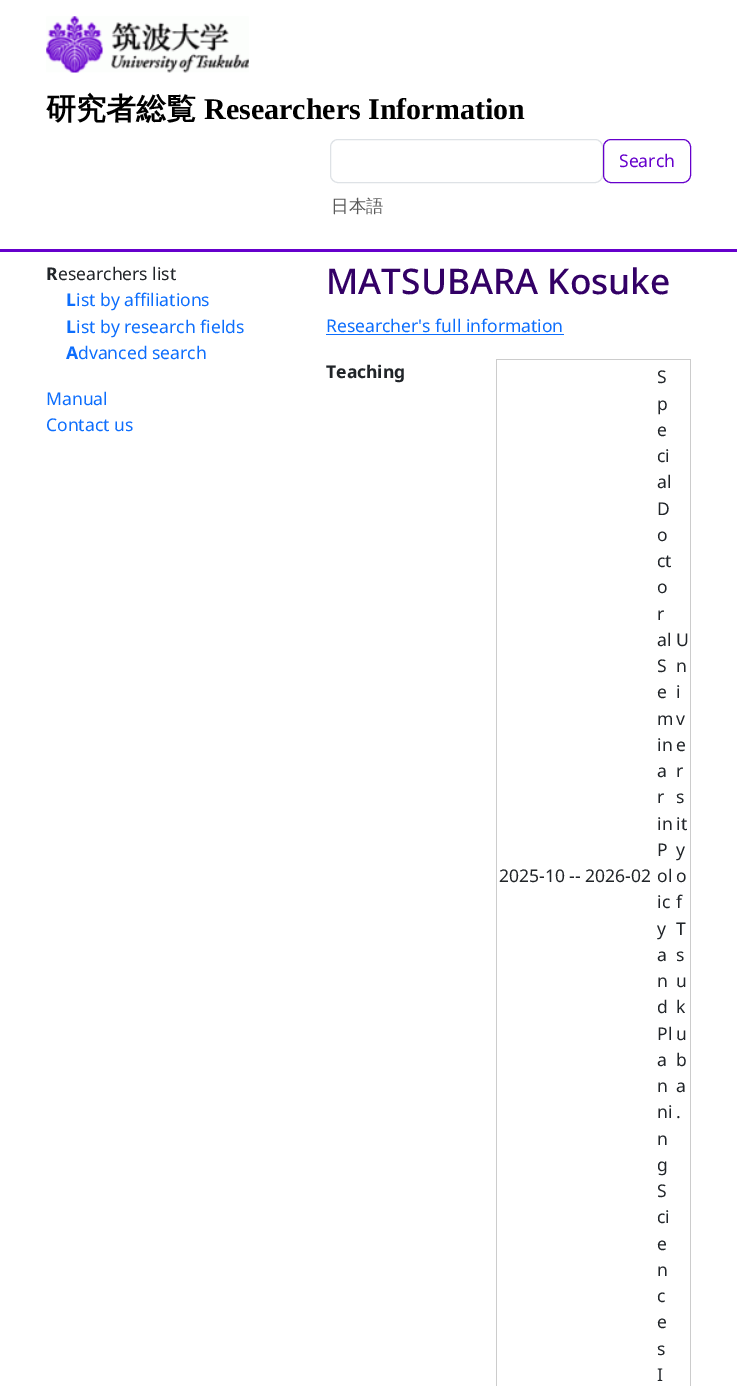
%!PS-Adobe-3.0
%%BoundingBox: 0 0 737 1386
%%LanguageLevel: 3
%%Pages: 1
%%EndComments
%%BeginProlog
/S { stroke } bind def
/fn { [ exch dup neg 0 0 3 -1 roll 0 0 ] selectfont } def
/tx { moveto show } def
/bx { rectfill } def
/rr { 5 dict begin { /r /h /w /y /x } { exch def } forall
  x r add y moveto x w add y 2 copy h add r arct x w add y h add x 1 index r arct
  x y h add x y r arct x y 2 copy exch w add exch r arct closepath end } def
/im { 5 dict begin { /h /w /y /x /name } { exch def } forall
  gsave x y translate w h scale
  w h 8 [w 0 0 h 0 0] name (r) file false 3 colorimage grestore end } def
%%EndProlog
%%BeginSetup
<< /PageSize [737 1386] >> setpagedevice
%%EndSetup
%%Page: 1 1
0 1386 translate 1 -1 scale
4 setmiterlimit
1 setgray
0 0 737 1386 bx
0.4 0 0.8 setrgbcolor
0 249 737 3 bx
(image0.raw) 46 16 203 57 im
/WenQuanYiZenHei-Bold 30 fn
0 setgray
(研究者総覧) 46 119 tx
/LiberationSerif-Bold 30 fn
(Researchers Information) 204 119 tx
0.871 0.886 0.902 setrgbcolor
330.5 139.5 272 43 7.5 rr S
0.4 0 0.8 setrgbcolor
603.5 139.5 87 43 7.5 rr S
/NotoSans-Regular 17.5 fn
(Search) 619 167 tx
/WenQuanYiZenHei-Medium 17.5 fn
0.349 setgray
(日本語) 331 212 tx
/NotoSans-Bold 17.5 fn
0.129 0.145 0.161 setrgbcolor
(R) 46 280 tx
/NotoSans-Regular 17.5 fn
(esearchers list) 58 280 tx
/NotoSans-Bold 17.5 fn
0.051 0.431 0.992 setrgbcolor
(L) 66 306 tx
/NotoSans-Regular 17.5 fn
(ist by affiliations) 76 306 tx
/NotoSans-Bold 17.5 fn
(L) 66 333 tx
/NotoSans-Regular 17.5 fn
(ist by research fields) 76 333 tx
/NotoSans-Bold 17.5 fn
(A) 66 359 tx
/NotoSans-Regular 17.5 fn
(dvanced search) 78 359 tx
(Manual) 46 405 tx
(Contact us) 46 431 tx
/NotoSans-Medium 35.25 fn
0.2 0 0.4 setrgbcolor
(MATSUBARA Kosuke) 326 294 tx
/NotoSans-Regular 17.5 fn
0.051 0.431 0.992 setrgbcolor
(Researcher's full information) 326 332 tx
326 334 238 1 bx
/NotoSans-Bold 17.5 fn
0.129 0.145 0.161 setrgbcolor
(Teaching) 326 378 tx
0.8 setgray
496 359 195 1 bx
690 359 1 1027 bx
496 359 1 1027 bx
/NotoSans-Regular 17.5 fn
0.129 0.145 0.161 setrgbcolor
(S) 657 383 tx
(p) 657 410 tx
(e) 657 436 tx
(ci) 657 462 tx
(al) 657 488 tx
(D) 657 515 tx
(o) 657 541 tx
(ct) 657 567 tx
(o) 657 593 tx
(r) 657 620 tx
(al U) 657 646 tx
(S) 657 672 tx
(e) 657 698 tx
(m) 657 725 tx
(in) 657 751 tx
(a) 657 777 tx
(r) 657 803 tx
(in) 657 830 tx
(P) 657 856 tx
(ol) 657 882 tx
(ic) 657 908 tx
(y) 657 935 tx
(a) 657 961 tx
(n) 657 987 tx
(d) 657 1013 tx
(Pl) 657 1040 tx
(a) 657 1066 tx
(n) 657 1092 tx
(ni) 657 1118 tx
(n) 657 1145 tx
(g) 657 1171 tx
(S) 657 1197 tx
(ci) 657 1223 tx
(e) 657 1250 tx
(n) 657 1276 tx
(c) 657 1302 tx
(e) 657 1328 tx
(s) 657 1355 tx
(I) 657 1381 tx
(2025-10 -- 2026-02) 499 882 tx
(n) 676 672 tx
(i) 676 698 tx
(v) 676 725 tx
(e) 676 751 tx
(r) 676 777 tx
(s) 676 803 tx
(it) 676 830 tx
(y) 676 856 tx
(o) 676 882 tx
(f) 676 908 tx
(T) 676 935 tx
(s) 676 961 tx
(u) 676 987 tx
(k) 676 1013 tx
(u) 676 1040 tx
(b) 676 1066 tx
(a) 676 1092 tx
(.) 676 1118 tx
showpage
%%EOF
